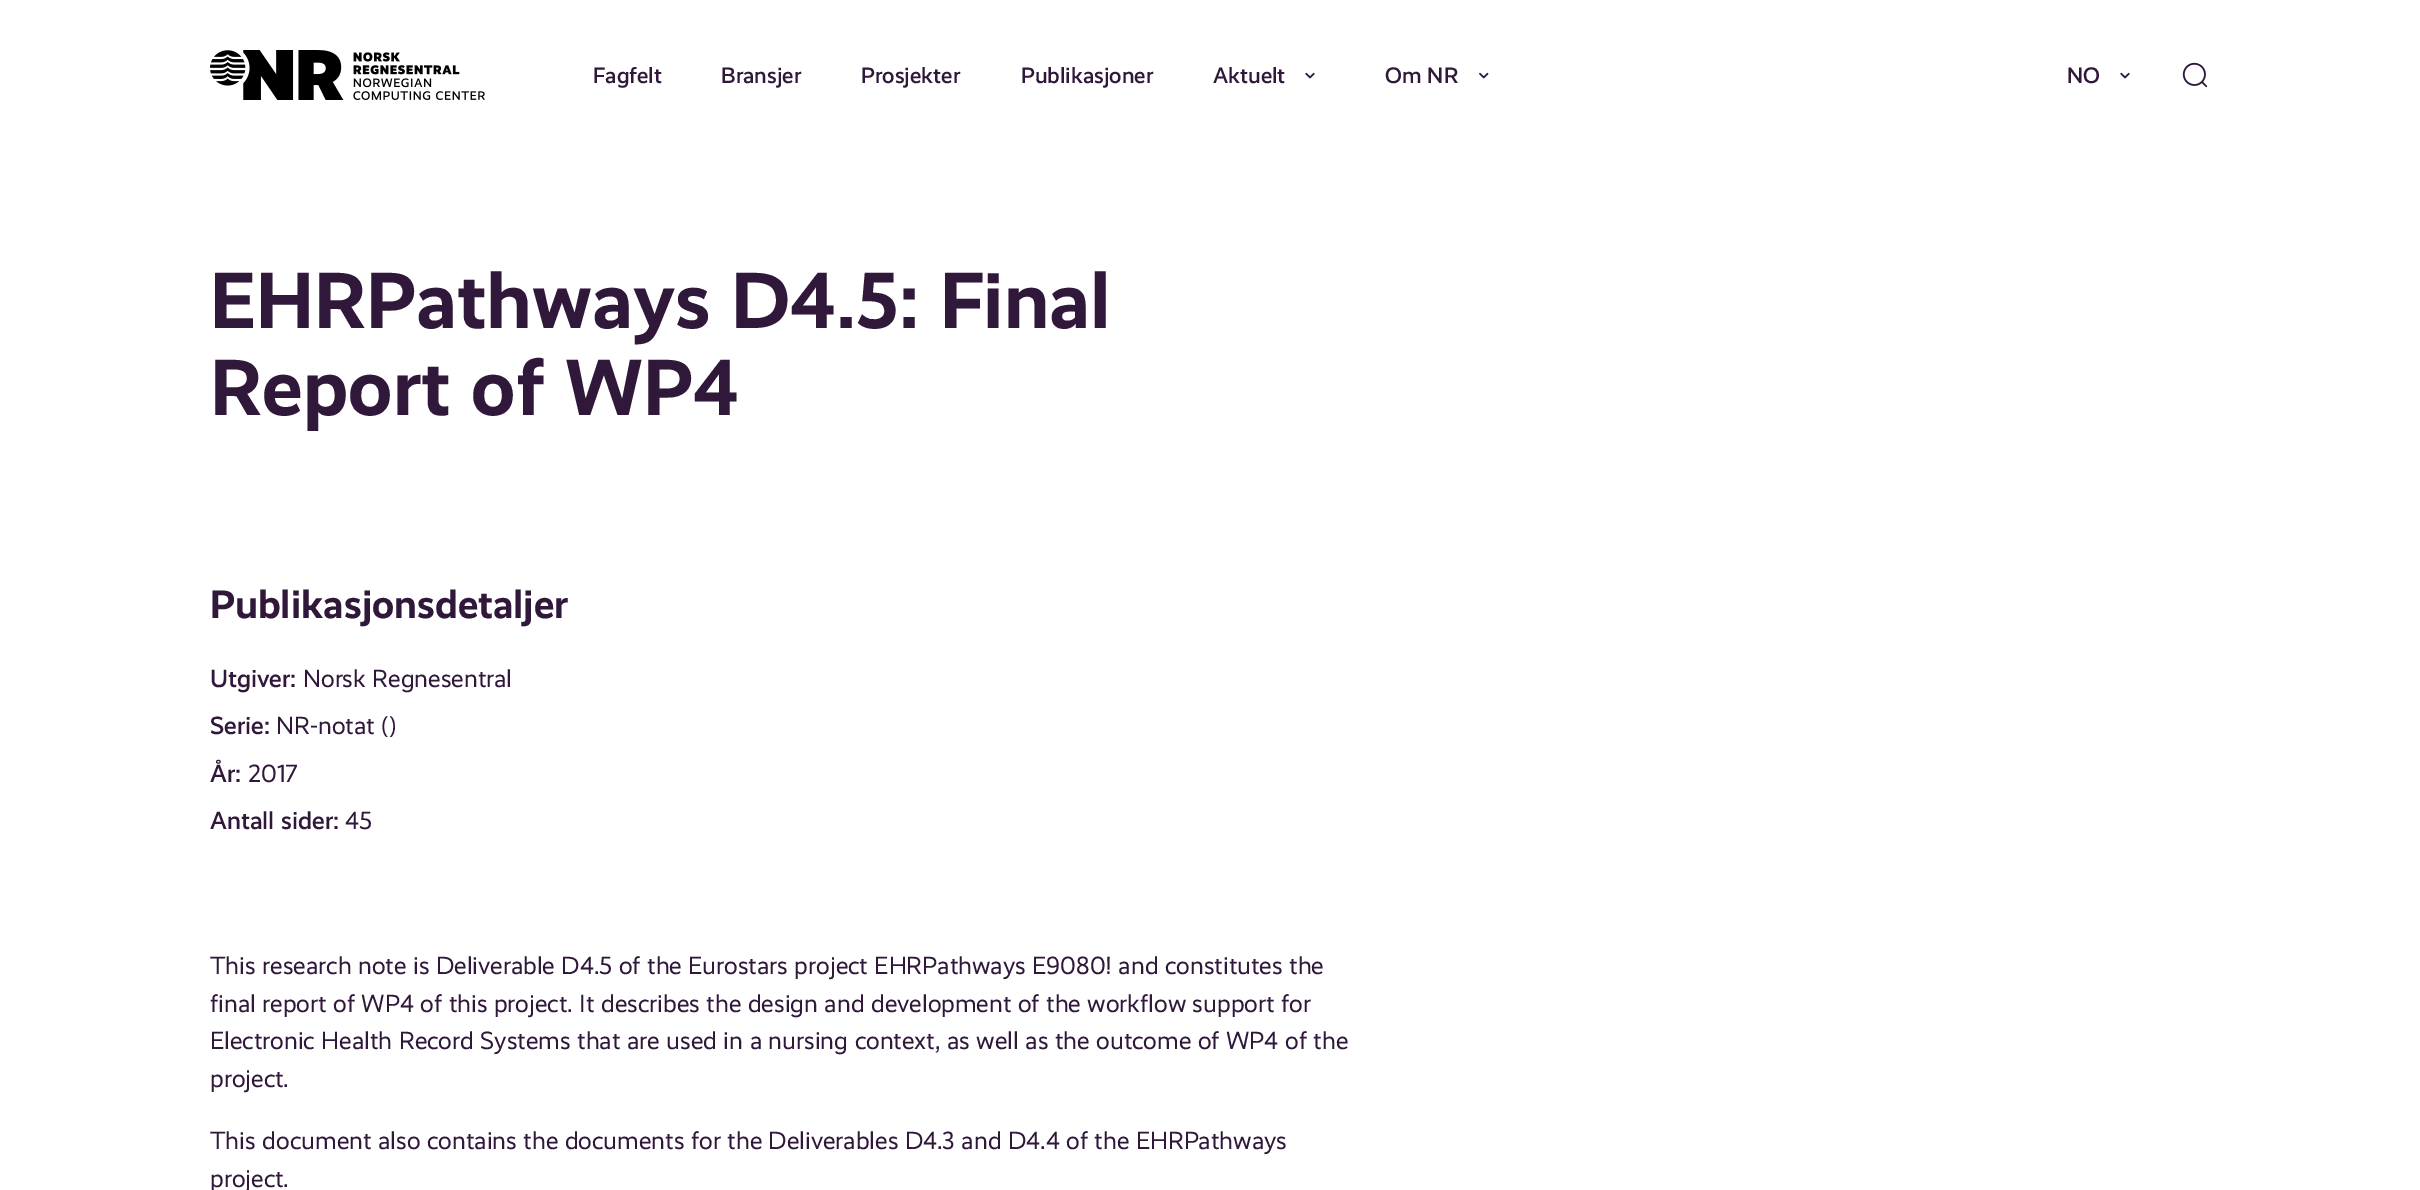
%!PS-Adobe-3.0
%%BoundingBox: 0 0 2420 1190
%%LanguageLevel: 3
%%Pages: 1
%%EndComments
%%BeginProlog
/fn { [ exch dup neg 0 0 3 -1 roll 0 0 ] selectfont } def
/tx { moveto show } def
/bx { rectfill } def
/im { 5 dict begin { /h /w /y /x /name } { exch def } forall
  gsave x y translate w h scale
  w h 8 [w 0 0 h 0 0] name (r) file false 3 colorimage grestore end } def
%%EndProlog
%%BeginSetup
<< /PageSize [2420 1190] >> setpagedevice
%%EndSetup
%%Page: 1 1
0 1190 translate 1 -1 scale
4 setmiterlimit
1 setgray
0 0 2420 1190 bx
(image0.raw) 210 50 275 50 im
/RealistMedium-Medium 22.5 fn
0.188 0.094 0.227 setrgbcolor
(Fagfelt) 593 83 tx
(Bransjer) 721 83 tx
(Prosjekter) 861 83 tx
(Publikasjoner) 1021 83 tx
(Aktuelt) 1213 83 tx
(image1.raw) 1305 72 10 7 im
(Om NR) 1385 83 tx
(image2.raw) 1479 72 10 7 im
(NO) 2067 83 tx
(image1.raw) 2120 72 10 7 im
(image3.raw) 2182 62 26 26 im
/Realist-Bold 80 fn
(EHRPathways D4.5: Final) 210 328 tx
(Report of WP4) 210 415 tx
/Realist-Bold 40 fn
(Publikasjonsdetaljer) 210 618 tx
/RealistMedium-Medium 25 fn
(Utgiver:) 210 687 tx
/Realist-Regular 25 fn
(Norsk Regnesentral) 303 687 tx
/RealistMedium-Medium 25 fn
(Serie:) 210 734 tx
/Realist-Regular 25 fn
(NR-notat \(\)) 276 734 tx
/RealistMedium-Medium 25 fn
(År:) 210 782 tx
/Realist-Regular 25 fn
(2017) 248 782 tx
/RealistMedium-Medium 25 fn
(Antall sider:) 210 829 tx
/Realist-Regular 25 fn
(45) 345 829 tx
(This research note is Deliverable D4.5 of the Eurostars project EHRPathways E9080! and constitutes the) 210 974 tx
(final report of WP4 of this project. It describes the design and development of the workflow support for) 210 1012 tx
(Electronic Health Record Systems that are used in a nursing context, as well as the outcome of WP4 of the) 210 1049 tx
(project.) 210 1087 tx
(This document also contains the documents for the Deliverables D4.3 and D4.4 of the EHRPathways) 210 1149 tx
(project.) 210 1187 tx
showpage
%%EOF
